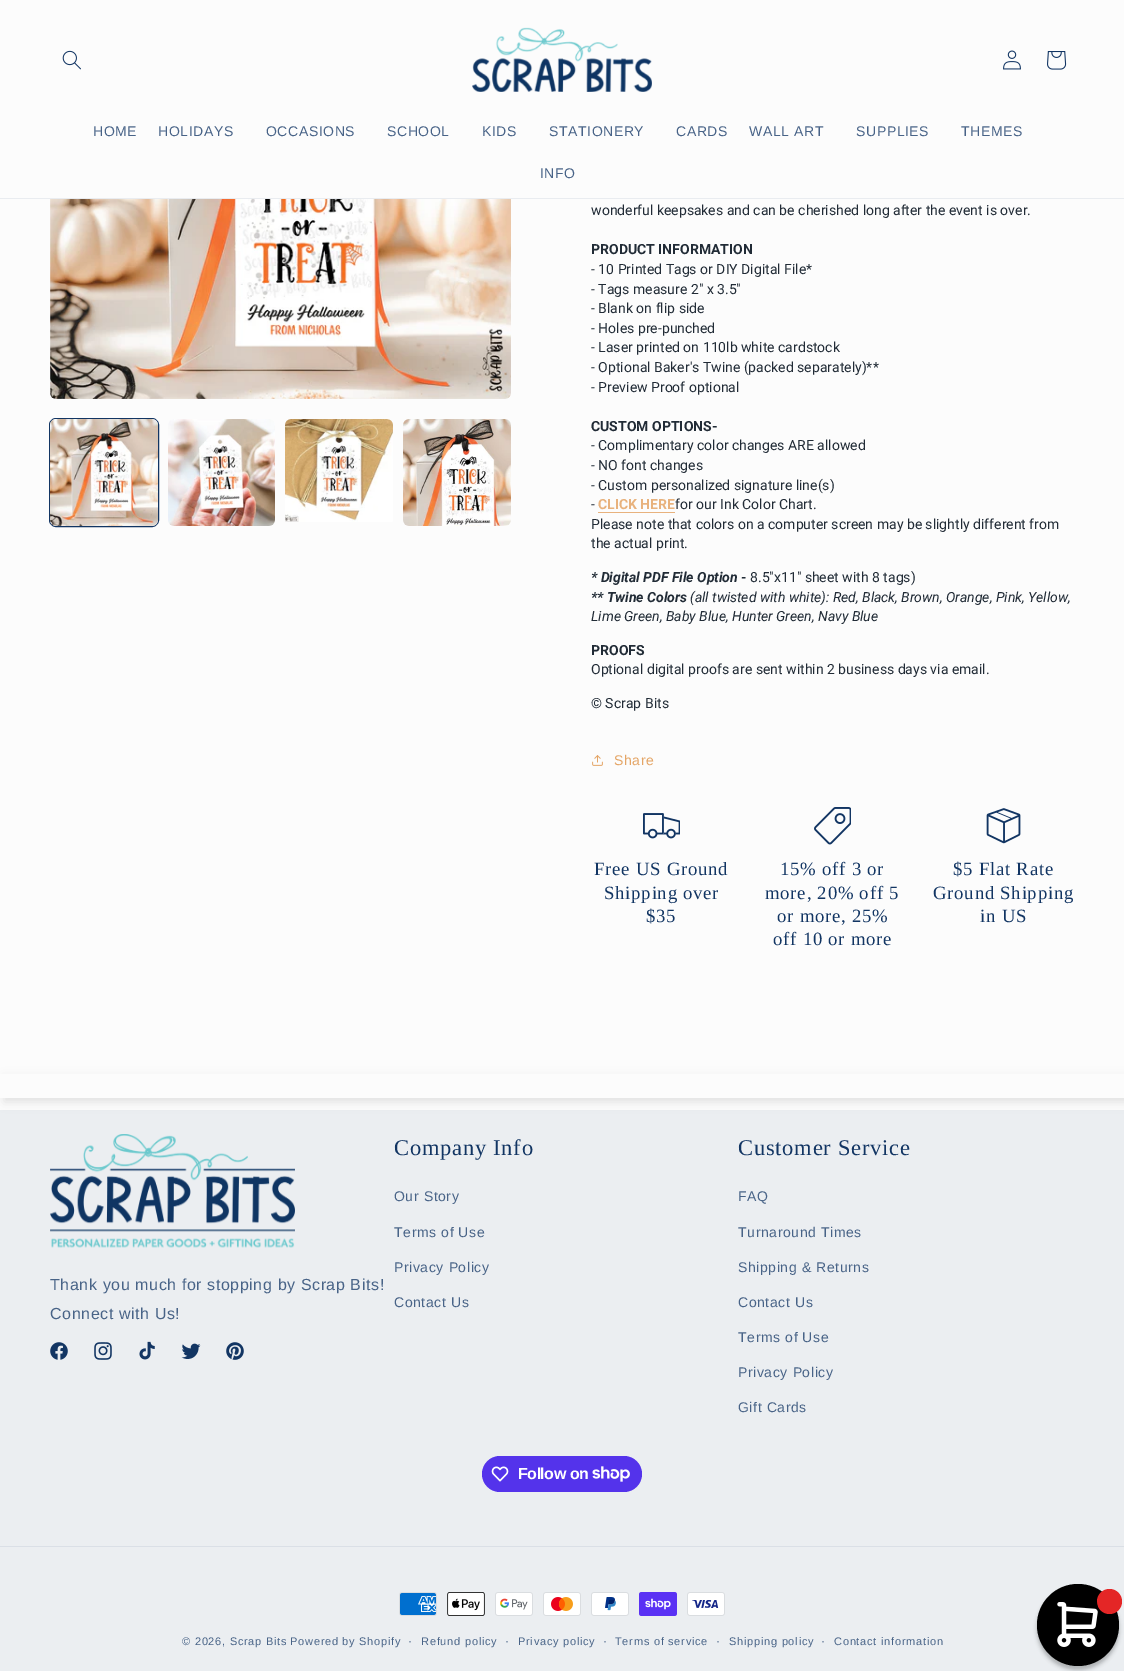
%!PS-Adobe-3.0
%%BoundingBox: 0 0 1124 1671
%%LanguageLevel: 3
%%Pages: 1
%%EndComments
%%BeginProlog
/m { moveto } bind def
/l { lineto } bind def
/h { closepath } bind def
/f { fill } bind def
/S { stroke } bind def
/q { gsave } bind def
/Q { grestore } bind def
/fn { [ exch dup neg 0 0 3 -1 roll 0 0 ] selectfont } def
/tx { moveto show } def
/bx { rectfill } def
/al { dup .setfillconstantalpha .setstrokeconstantalpha } def
/ci { newpath 0 360 arc closepath } def
/rr { 5 dict begin { /r /h /w /y /x } { exch def } forall
  x r add y moveto x w add y 2 copy h add r arct x w add y h add x 1 index r arct
  x y h add x y r arct x y 2 copy exch w add exch r arct closepath end } def
/sh { 12 dict begin { /a /b /q /h /w /y /x } { exch def } forall gsave /was 0 def
  9 -2 -9 { dup b mul 4 div /e exch def 1 sub .425 mul 2.718 exch exp 1 add a .99 .min exch div /now exch def
    1 1 now sub 1 was sub div sub al /was now def
    w h .min e 2 mul add 0 gt { x e sub y e sub w e 2 mul add h e 2 mul add
      q e add b .6 mul add w h .min 2 div e add .min 0 .max rr fill } if } for grestore end } def
/im { 5 dict begin { /h /w /y /x /name } { exch def } forall
  gsave x y translate w h scale
  w h 8 [w 0 0 h 0 0] name (r) file false 3 colorimage grestore end } def
%%EndProlog
%%BeginSetup
<< /PageSize [1124 1671] /PageUsesTransparency true >> setpagedevice
%%EndSetup
%%Page: 1 1
0 .pushpdf14devicefilter
0 1671 translate 1 -1 scale
4 setmiterlimit
0.988 setgray
0 0 1124 1671 bx
0.914 0.925 0.941 setrgbcolor
0 198 1124 1 bx
(image0.raw) 62 50 19 20 im
(image1.raw) 472 27 180 65 im
(image2.raw) 1003 50 18 20 im
(image3.raw) 1047 51 20 19 im
/LiberationSans-Regular 14 fn
0.282 0.388 0.529 setrgbcolor
93 136 m 0.6 0 (HOME) ashow
158 136 m 0.6 0 (HOLIDAYS) ashow
266 136 m 0.6 0 (OCCASIONS) ashow
387 136 m 0.6 0 (SCHOOL) ashow
482 136 m 0.6 0 (KIDS) ashow
549 136 m 0.6 0 (STATIONERY) ashow
676 136 m 0.6 0 (CARDS) ashow
749 136 m 0.6 0 (WALL ART) ashow
856 136 m 0.6 0 (SUPPLIES) ashow
961 136 m 0.6 0 (THEMES) ashow
540 178 m 0.6 0 (INFO) ashow
(image4.raw) 50 199 461 200 im
0.071 0.208 0.388 setrgbcolor
49.5 418.5 109 108 6.5 rr S
(image5.raw) 50 419 108 107 im
(image6.raw) 168 419 107 107 im
(image7.raw) 285 419 108 103 im
(image8.raw) 403 419 108 107 im
/Roboto-Regular 14 fn
0.129 0.169 0.212 setrgbcolor
(wonderful keepsakes and can be cherished long after the event is over.) 591 215 tx
/Roboto-Bold 14 fn
(PRODUCT INFORMATION) 591 254 tx
/Roboto-Regular 14 fn
(- 10 Printed Tags or DIY Digital File*) 591 274 tx
(- Tags measure 2" x 3.5") 591 294 tx
(- Blank on flip side) 591 313 tx
(- Holes pre-punched) 591 333 tx
(- Laser printed on 110lb white cardstock) 591 352 tx
(- Optional Baker's Twine \(packed separately\)**) 591 372 tx
(- Preview Proof optional) 591 392 tx
/Roboto-Bold 14 fn
(CUSTOM OPTIONS-) 591 431 tx
/Roboto-Regular 14 fn
(- Complimentary color changes ARE allowed) 591 450 tx
(- NO font changes) 591 470 tx
(- Custom personalized signature line\(s\)) 591 490 tx
(-) 591 509 tx
/Roboto-Bold 14 fn
0.91 0.698 0.49 setrgbcolor
(CLICK HERE) 598 509 tx
598 512 77 1 bx
/Roboto-Regular 14 fn
0.129 0.169 0.212 setrgbcolor
(for our Ink Color Chart.) 675 509 tx
(Please note that colors on a computer screen may be slightly different from) 591 529 tx
(the actual print.) 591 548 tx
/Roboto-BoldItalic 14 fn
(* Digital PDF File Option -) 591 582 tx
/Roboto-Regular 14 fn
(8.5"x11" sheet with 8 tags\)) 750 582 tx
/Roboto-BoldItalic 14 fn
(** Twine Colors) 591 602 tx
/Roboto-Italic 14 fn
(\(all twisted with white\): Red, Black, Brown, Orange, Pink, Yellow,) 690 602 tx
(Lime Green, Baby Blue, Hunter Green, Navy Blue) 591 621 tx
/Roboto-Bold 14 fn
(PROOFS) 591 655 tx
/Roboto-Regular 14 fn
(Optional digital proofs are sent within 2 business days via email.) 591 674 tx
(© Scrap Bits) 591 708 tx
(image9.raw) 592 755 11 11 im
/LiberationSans-Regular 14 fn
0.894 0.647 0.4 setrgbcolor
614 765 m 0.6 0 (Share) ashow
(image10.raw) 643 813 37 26 im
/LiberationSerif-Regular 18.75 fn
0.071 0.208 0.388 setrgbcolor
594 875 m 0.75 0 (Free US Ground) ashow
604 899 m 0.75 0 (Shipping over) ashow
646 922 m 0.75 0 ($35) ashow
(image11.raw) 814 807 37 38 im
780 875 m 0.75 0 (15% off 3 or) ashow
765 899 m 0.75 0 (more, 20% off 5) ashow
777 922 m 0.75 0 (or more, 25%) ashow
773 945 m 0.75 0 (off 10 or more) ashow
(image12.raw) 986 808 35 36 im
953 875 m 0.75 0 ($5 Flat Rate) ashow
933 899 m 0.75 0 (Ground Shipping) ashow
980 922 m 0.75 0 (in US) ashow
0.922 0.933 0.945 setrgbcolor
0 1110 1124 561 bx
q
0 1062 m 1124 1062 l 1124 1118 l 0 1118 l h 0 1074 m 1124 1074 l 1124 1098 l 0 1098 l h eoclip newpath
0.412 setgray
4 1078 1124 24 0 5 0.2 sh
Q
(image13.raw) 50 1134 245 114 im
/LiberationSans-Regular 16 fn
0.282 0.388 0.529 setrgbcolor
50 1290 m 0.6 0 (Thank you much for stopping by Scrap Bits!) ashow
50 1319 m 0.6 0 (Connect with Us!) ashow
(image14.raw) 50 1342 18 18 im
(image15.raw) 94 1342 18 18 im
(image16.raw) 139 1341 16 19 im
(image17.raw) 181 1343 20 16 im
(image18.raw) 226 1342 18 18 im
/LiberationSerif-Regular 22.5 fn
0.071 0.208 0.388 setrgbcolor
394 1155 m 0.75 0 (Company Info) ashow
/LiberationSans-Regular 14 fn
0.282 0.388 0.529 setrgbcolor
394 1201 m 0.6 0 (Our Story) ashow
394 1237 m 0.6 0 (Terms of Use) ashow
394 1272 m 0.6 0 (Privacy Policy) ashow
394 1307 m 0.6 0 (Contact Us) ashow
/LiberationSerif-Regular 22.5 fn
0.071 0.208 0.388 setrgbcolor
738 1155 m 0.75 0 (Customer Service) ashow
/LiberationSans-Regular 14 fn
0.282 0.388 0.529 setrgbcolor
738 1201 m 0.6 0 (FAQ) ashow
738 1237 m 0.6 0 (Turnaround Times) ashow
738 1272 m 0.6 0 (Shipping & Returns) ashow
738 1307 m 0.6 0 (Contact Us) ashow
738 1342 m 0.6 0 (Terms of Use) ashow
738 1377 m 0.6 0 (Privacy Policy) ashow
738 1412 m 0.6 0 (Gift Cards) ashow
0.329 0.2 0.922 setrgbcolor
482 1456 160 36 18 rr f
(image19.raw) 491 1466 18 16 im
/LiberationSans-Bold 16 fn
1 setgray
518 1479 m -0.5 0 (Follow on) ashow
(image20.raw) 592 1466 38 16 im
0.855 0.875 0.902 setrgbcolor
0 1546 1124 1 bx
(image21.raw) 399 1592 38 24 im
(image22.raw) 447 1592 38 24 im
(image23.raw) 495 1592 38 24 im
(image24.raw) 543 1592 38 24 im
(image25.raw) 591 1592 38 24 im
(image26.raw) 639 1592 38 24 im
(image27.raw) 687 1592 38 24 im
/LiberationSans-Regular 11 fn
0.282 0.388 0.529 setrgbcolor
182 1645 m 0.75 0 (© 2026, Scrap Bits) ashow
290 1645 m 0.75 0 (Powered by Shopify) ashow
/LiberationSans-Regular 12 fn
408 1645 m 0.75 0 (·) ashow
/LiberationSans-Regular 11 fn
421 1645 m 0.75 0 (Refund policy) ashow
/LiberationSans-Regular 12 fn
505 1645 m 0.75 0 (·) ashow
/LiberationSans-Regular 11 fn
518 1645 m 0.75 0 (Privacy policy) ashow
/LiberationSans-Regular 12 fn
603 1645 m 0.75 0 (·) ashow
/LiberationSans-Regular 11 fn
615 1645 m 0.75 0 (Terms of service) ashow
/LiberationSans-Regular 12 fn
716 1645 m 0.75 0 (·) ashow
/LiberationSans-Regular 11 fn
729 1645 m 0.75 0 (Shipping policy) ashow
/LiberationSans-Regular 12 fn
821 1645 m 0.75 0 (·) ashow
/LiberationSans-Regular 11 fn
834 1645 m 0.75 0 (Contact information) ashow
0 setgray
1037 1588 82 82 41 2 0.25 sh
1078 1625 41 ci f
0.894 0.149 0.149 setrgbcolor
1109.5 1601.5 12.5 ci f
(image28.raw) 1057 1602 41 45 im
.poppdf14devicefilter showpage
%%EOF
